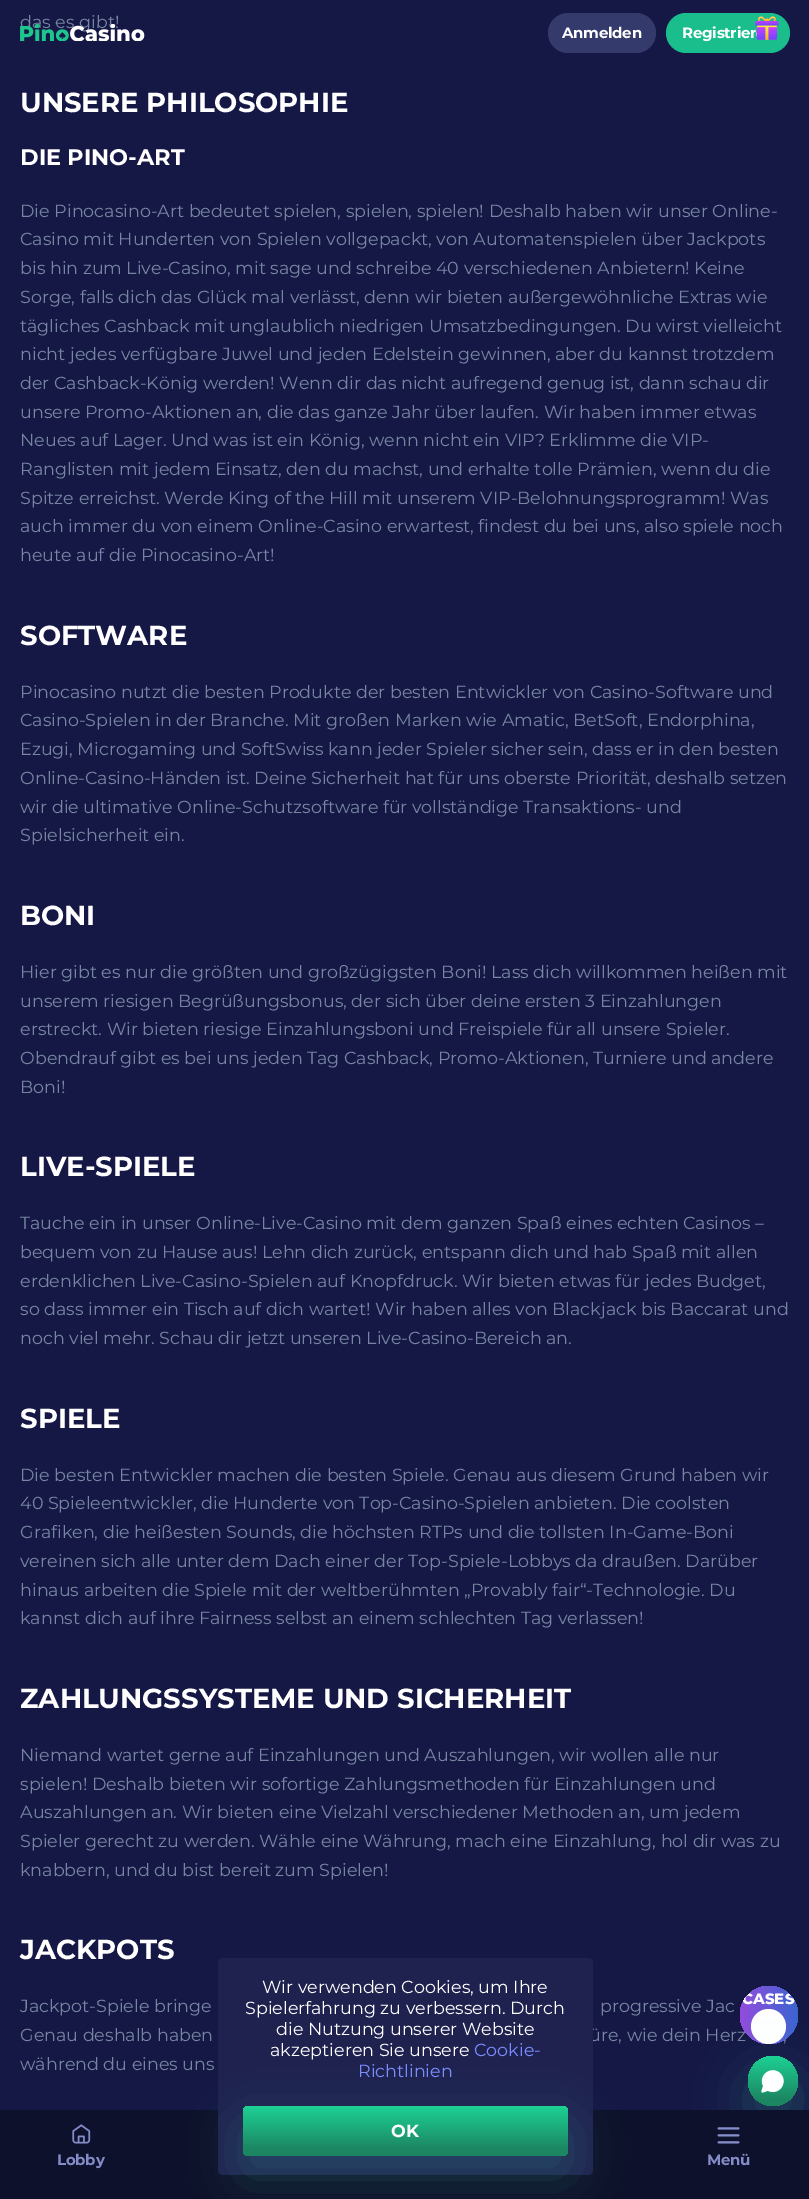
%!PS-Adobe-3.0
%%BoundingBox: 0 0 809 2199
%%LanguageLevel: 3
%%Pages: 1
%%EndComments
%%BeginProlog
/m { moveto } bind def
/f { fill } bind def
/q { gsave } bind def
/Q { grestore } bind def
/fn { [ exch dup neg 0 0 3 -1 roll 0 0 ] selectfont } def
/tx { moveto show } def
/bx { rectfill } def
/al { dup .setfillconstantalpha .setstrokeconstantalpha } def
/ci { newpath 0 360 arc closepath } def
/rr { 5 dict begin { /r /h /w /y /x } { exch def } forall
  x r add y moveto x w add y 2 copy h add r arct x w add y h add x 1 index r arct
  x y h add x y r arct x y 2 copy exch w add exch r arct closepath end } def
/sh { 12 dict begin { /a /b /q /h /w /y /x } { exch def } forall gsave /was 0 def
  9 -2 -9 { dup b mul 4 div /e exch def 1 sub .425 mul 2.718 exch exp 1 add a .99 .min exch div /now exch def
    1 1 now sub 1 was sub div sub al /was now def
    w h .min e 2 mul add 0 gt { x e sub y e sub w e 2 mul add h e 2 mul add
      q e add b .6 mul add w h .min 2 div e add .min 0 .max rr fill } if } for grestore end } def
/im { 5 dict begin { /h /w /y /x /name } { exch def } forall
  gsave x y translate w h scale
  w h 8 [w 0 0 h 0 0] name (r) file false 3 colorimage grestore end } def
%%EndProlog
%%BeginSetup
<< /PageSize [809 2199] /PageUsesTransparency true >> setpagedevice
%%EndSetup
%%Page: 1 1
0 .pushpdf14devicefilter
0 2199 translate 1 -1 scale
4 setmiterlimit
0.082 0.09 0.271 setrgbcolor
0 0 809 2199 bx
/Montserrat-Regular 17.5 fn
0.463 0.522 0.635 setrgbcolor
(das es gibt!) 20 28 tx
/Montserrat-Bold 27.5 fn
1 setgray
(UNSERE PHILOSOPHIE) 20 112 tx
/Montserrat-Bold 22.5 fn
(DIE PINO-ART) 20 165 tx
/Montserrat-Regular 17.5 fn
0.463 0.522 0.635 setrgbcolor
(Die Pinocasino-Art bedeutet spielen, spielen, spielen! Deshalb haben wir unser Online-) 20 217 tx
(Casino mit Hunderten von Spielen vollgepackt, von Automatenspielen über Jackpots) 20 245 tx
(bis hin zum Live-Casino, mit sage und schreibe 40 verschiedenen Anbietern! Keine) 20 274 tx
(Sorge, falls dich das Glück mal verlässt, denn wir bieten außergewöhnliche Extras wie) 20 303 tx
(tägliches Cashback mit unglaublich niedrigen Umsatzbedingungen. Du wirst vielleicht) 20 332 tx
(nicht jedes verfügbare Juwel und jeden Edelstein gewinnen, aber du kannst trotzdem) 20 360 tx
(der Cashback-König werden! Wenn dir das nicht aufregend genug ist, dann schau dir) 20 389 tx
(unsere Promo-Aktionen an, die das ganze Jahr über laufen. Wir haben immer etwas) 20 418 tx
(Neues auf Lager. Und was ist ein König, wenn nicht ein VIP? Erklimme die VIP-) 20 446 tx
(Ranglisten mit jedem Einsatz, den du machst, und erhalte tolle Prämien, wenn du die) 20 475 tx
(Spitze erreichst. Werde King of the Hill mit unserem VIP-Belohnungsprogramm! Was) 20 504 tx
(auch immer du von einem Online-Casino erwartest, findest du bei uns, also spiele noch) 20 532 tx
(heute auf die Pinocasino-Art!) 20 561 tx
/Montserrat-Bold 27.5 fn
1 setgray
(SOFTWARE) 20 645 tx
/Montserrat-Regular 17.5 fn
0.463 0.522 0.635 setrgbcolor
(Pinocasino nutzt die besten Produkte der besten Entwickler von Casino-Software und) 20 698 tx
(Casino-Spielen in der Branche. Mit großen Marken wie Amatic, BetSoft, Endorphina,) 20 726 tx
(Ezugi, Microgaming und SoftSwiss kann jeder Spieler sicher sein, dass er in den besten) 20 755 tx
(Online-Casino-Händen ist. Deine Sicherheit hat für uns oberste Priorität, deshalb setzen) 20 784 tx
(wir die ultimative Online-Schutzsoftware für vollständige Transaktions- und) 20 813 tx
(Spielsicherheit ein.) 20 841 tx
/Montserrat-Bold 27.5 fn
1 setgray
(BONI) 20 925 tx
/Montserrat-Regular 17.5 fn
0.463 0.522 0.635 setrgbcolor
(Hier gibt es nur die größten und großzügigsten Boni! Lass dich willkommen heißen mit) 20 978 tx
(unserem riesigen Begrüßungsbonus, der sich über deine ersten 3 Einzahlungen) 20 1007 tx
(erstreckt. Wir bieten riesige Einzahlungsboni und Freispiele für all unsere Spieler.) 20 1035 tx
(Obendrauf gibt es bei uns jeden Tag Cashback, Promo-Aktionen, Turniere und andere) 20 1064 tx
(Boni!) 20 1093 tx
/Montserrat-Bold 27.5 fn
1 setgray
(LIVE-SPIELE) 20 1176 tx
/Montserrat-Regular 17.5 fn
0.463 0.522 0.635 setrgbcolor
(Tauche ein in unser Online-Live-Casino mit dem ganzen Spaß eines echten Casinos –) 20 1229 tx
(bequem von zu Hause aus! Lehn dich zurück, entspann dich und hab Spaß mit allen) 20 1258 tx
(erdenklichen Live-Casino-Spielen auf Knopfdruck. Wir bieten etwas für jedes Budget,) 20 1287 tx
(so dass immer ein Tisch auf dich wartet! Wir haben alles von Blackjack bis Baccarat und) 20 1315 tx
(noch viel mehr. Schau dir jetzt unseren Live-Casino-Bereich an.) 20 1344 tx
/Montserrat-Bold 27.5 fn
1 setgray
(SPIELE) 20 1428 tx
/Montserrat-Regular 17.5 fn
0.463 0.522 0.635 setrgbcolor
(Die besten Entwickler machen die besten Spiele. Genau aus diesem Grund haben wir) 20 1481 tx
(40 Spieleentwickler, die Hunderte von Top-Casino-Spielen anbieten. Die coolsten) 20 1509 tx
(Grafiken, die heißesten Sounds, die höchsten RTPs und die tollsten In-Game-Boni) 20 1538 tx
(vereinen sich alle unter dem Dach einer der Top-Spiele-Lobbys da draußen. Darüber) 20 1567 tx
(hinaus arbeiten die Spiele mit der weltberühmten „Provably fair“-Technologie. Du) 20 1596 tx
(kannst dich auf ihre Fairness selbst an einem schlechten Tag verlassen!) 20 1624 tx
/Montserrat-Bold 27.5 fn
1 setgray
(ZAHLUNGSSYSTEME UND SICHERHEIT) 20 1708 tx
/Montserrat-Regular 17.5 fn
0.463 0.522 0.635 setrgbcolor
(Niemand wartet gerne auf Einzahlungen und Auszahlungen, wir wollen alle nur) 20 1761 tx
(spielen! Deshalb bieten wir sofortige Zahlungsmethoden für Einzahlungen und) 20 1790 tx
(Auszahlungen an. Wir bieten eine Vielzahl verschiedener Methoden an, um jedem) 20 1818 tx
(Spieler gerecht zu werden. Wähle eine Währung, mach eine Einzahlung, hol dir was zu) 20 1847 tx
(knabbern, und du bist bereit zum Spielen!) 20 1876 tx
/Montserrat-Bold 27.5 fn
1 setgray
(JACKPOTS) 20 1959 tx
/Montserrat-Regular 17.5 fn
0.463 0.522 0.635 setrgbcolor
(Jackpot-Spiele bringe) 20 2012 tx
(progressive Jac) 600 2012 tx
(Genau deshalb haben) 20 2041 tx
(üre, wie dein Herz) 589 2041 tx
(,) 783 2041 tx
(während du eines uns) 20 2070 tx
q 769 2015 29 ci clip newpath
<< /ShadingType 2 /ColorSpace /DeviceRGB /Coords [740 2015 798 2015] /Extend [true true] /Function << /FunctionType 2 /Domain [0 1] /C0 [0.58 0.298 0.867] /C1 [0.227 0.396 0.82] /N 1 >> >> shfill Q
q
740 1986 58 58 29 rr clip newpath
1 setgray
768.5 2026.5 17.5 ci f
Q
0.247 0.937 0.706 setrgbcolor
748 2075 50 50 25 25 0.2 sh
0.055 0.067 0.169 setrgbcolor
0 2110 809 89 bx
(image0.raw) 72 2124 19 20 im
/Montserrat-Bold 15 fn
0.518 0.549 0.788 setrgbcolor
57 2165 m -0.25 0 (Lobby) ashow
(image1.raw) 717 2127 23 17 im
707 2165 m -0.25 0 (Menü) ashow
(image2.raw) 20 24 125 17 im
0.204 0.227 0.424 setrgbcolor
548 13 108 40 20 rr f
1 setgray
562 38 m -0.25 0 (Anmelden) ashow
0.102 0.741 0.549 setrgbcolor
666 13 124 40 20 rr f
1 setgray
682 38 m -0.25 0 (Registrier) ashow
(image3.raw) 755 16 24 24 im
0.122 0.129 0.31 setrgbcolor
218 1958 375 217 5 rr f
/Montserrat-Regular 17.5 fn
1 setgray
(Wir verwenden Cookies, um Ihre) 262 1993 tx
(Spielerfahrung zu verbessern. Durch) 245 2014 tx
(die Nutzung unserer Website) 276 2035 tx
(akzeptieren Sie unsere) 270 2056 tx
0.478 0.553 1 setrgbcolor
(Cookie-) 474 2056 tx
(Richtlinien) 358 2077 tx
0.247 0.937 0.706 setrgbcolor
243 2125 325 50 5 25 0.2 sh
q 243 2106 325 50 5 rr clip newpath
<< /ShadingType 2 /ColorSpace /DeviceRGB /Coords [405 2100 405 2156] /Extend [true true] /Function << /FunctionType 3 /Domain [0 1] /Functions [<< /FunctionType 2 /Domain [0 1] /C0 [0.11 0.859 0.608] /C1 [0.11 0.522 0.384] /N 1 >> << /FunctionType 2 /Domain [0 1] /C0 [0.11 0.522 0.384] /C1 [0.11 0.522 0.384] /N 1 >>] /Bounds [0.89] /Encode [0 1 0 1] >> >> shfill Q
/Montserrat-Bold 17.5 fn
1 setgray
(OK) 391 2137 tx
q
740 1986 58 58 29 rr clip newpath
/Montserrat-ExtraBold 15 fn
(CASES) 742 2004 tx
Q
q 773 2081 25 ci clip newpath
<< /ShadingType 2 /ColorSpace /DeviceRGB /Coords [773 2050 773 2106] /Extend [true true] /Function << /FunctionType 3 /Domain [0 1] /Functions [<< /FunctionType 2 /Domain [0 1] /C0 [0.11 0.859 0.608] /C1 [0.11 0.522 0.384] /N 1 >> << /FunctionType 2 /Domain [0 1] /C0 [0.11 0.522 0.384] /C1 [0.11 0.522 0.384] /N 1 >>] /Bounds [0.89] /Encode [0 1 0 1] >> >> shfill Q
(image4.raw) 761 2070 23 23 im
.poppdf14devicefilter showpage
%%EOF
